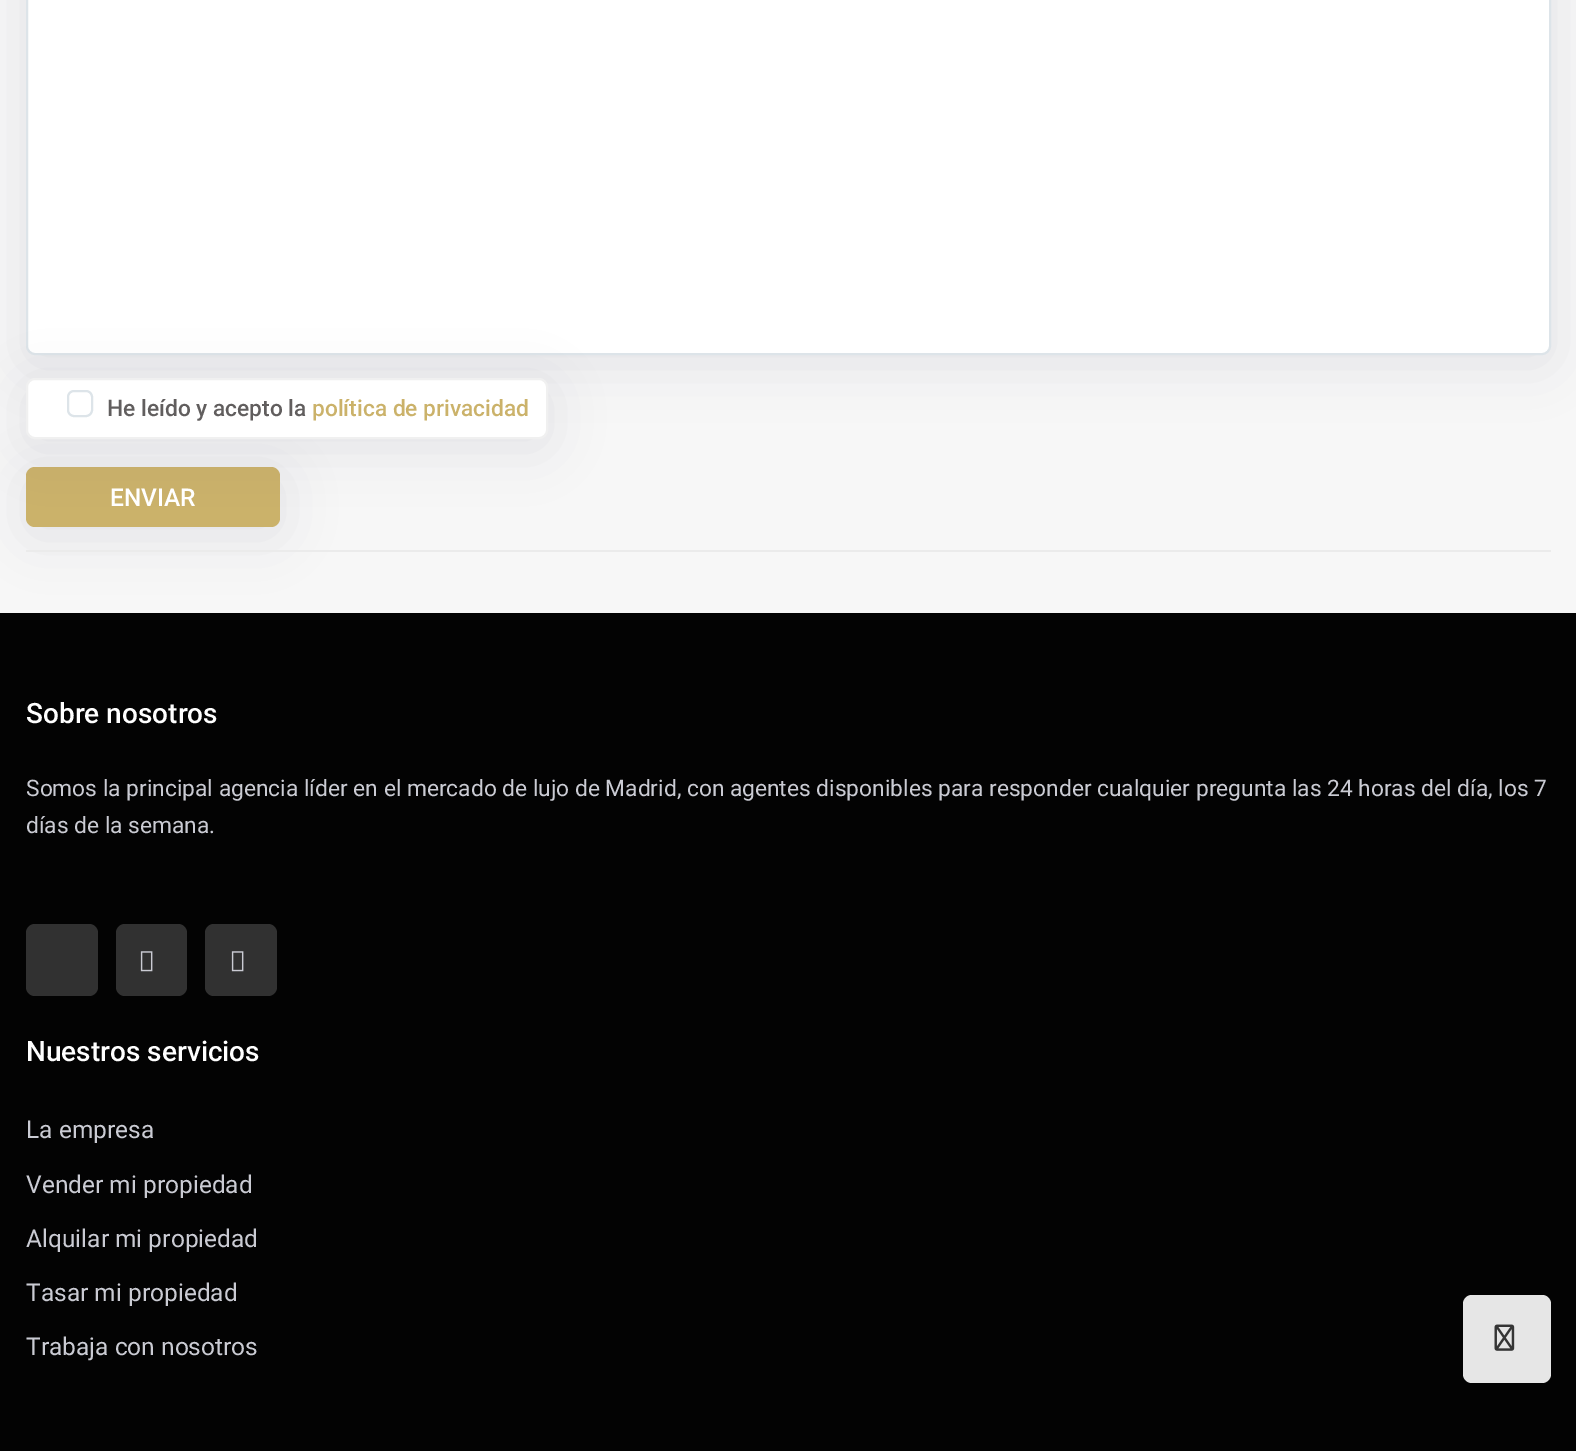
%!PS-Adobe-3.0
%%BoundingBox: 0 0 1576 1451
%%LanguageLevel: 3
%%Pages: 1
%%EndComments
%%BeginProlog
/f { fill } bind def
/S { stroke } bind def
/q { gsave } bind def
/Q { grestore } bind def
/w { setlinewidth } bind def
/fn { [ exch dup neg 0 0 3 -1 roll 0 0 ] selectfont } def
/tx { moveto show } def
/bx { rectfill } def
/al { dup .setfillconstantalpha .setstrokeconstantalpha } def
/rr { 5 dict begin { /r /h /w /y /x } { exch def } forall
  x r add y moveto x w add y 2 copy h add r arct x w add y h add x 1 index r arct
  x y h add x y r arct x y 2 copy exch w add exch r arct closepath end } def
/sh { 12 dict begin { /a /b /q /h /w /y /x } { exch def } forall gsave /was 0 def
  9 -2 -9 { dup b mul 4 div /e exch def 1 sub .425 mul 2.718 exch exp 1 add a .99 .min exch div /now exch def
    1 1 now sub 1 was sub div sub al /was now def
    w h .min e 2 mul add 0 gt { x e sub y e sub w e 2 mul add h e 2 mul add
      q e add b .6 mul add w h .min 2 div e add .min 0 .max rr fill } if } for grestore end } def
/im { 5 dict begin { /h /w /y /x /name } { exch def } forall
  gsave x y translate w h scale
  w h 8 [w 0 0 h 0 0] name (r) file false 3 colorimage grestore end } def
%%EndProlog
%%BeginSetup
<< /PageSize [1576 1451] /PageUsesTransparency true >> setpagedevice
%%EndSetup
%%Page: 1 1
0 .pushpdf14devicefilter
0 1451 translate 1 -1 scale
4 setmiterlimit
0.969 setgray
0 0 1576 1451 bx
0.141 0.165 0.298 setrgbcolor
26 -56 1525 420 9 26 0.1 sh
1 setgray
27 -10 1523 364 8 rr q f Q
0.867 0.894 0.914 setrgbcolor
2 w
S
0.012 setgray
0 613 1576 838 bx
0.141 0.165 0.298 setrgbcolor
26 476 254 60 9 26 0.1 sh
0.796 0.698 0.416 setrgbcolor
26 467 254 60 9 rr f
0.141 0.165 0.298 setrgbcolor
26 387 522 61 9 26 0.1 sh
1 setgray
27 379 520 59 8 rr q f Q
0.941 setgray
S
0.867 0.894 0.914 setrgbcolor
68 391 24 25 6 rr S
/Roboto-Medium 22.75 fn
0.38 0.369 0.369 setrgbcolor
(He leído y acepto la) 107 416 tx
0.796 0.698 0.416 setrgbcolor
(política de privacidad) 312 416 tx
/Roboto-Medium 24.5 fn
1 setgray
(ENVIAR) 110 506 tx
0.922 setgray
26 550 1525 2 bx
/Roboto-Medium 28 fn
1 setgray
(Sobre nosotros) 26 723 tx
/Roboto-Regular 22.75 fn
0.792 0.796 0.827 setrgbcolor
(Somos la principal agencia líder en el mercado de lujo de Madrid, con agentes disponibles para responder cualquier pregunta las 24 horas del día, los 7) 26 796 tx
(días de la semana.) 26 833 tx
0.192 setgray
26 924 72 72 9 rr f
116 924 71 72 9 rr f
(image0.raw) 140 951 13 21 im
205 924 72 72 9 rr f
(image0.raw) 231 951 13 21 im
/Roboto-Medium 28 fn
1 setgray
(Nuestros servicios) 26 1061 tx
/Roboto-Regular 24.5 fn
0.792 0.796 0.827 setrgbcolor
(La empresa) 26 1138 tx
(Vender mi propiedad) 26 1193 tx
(Alquilar mi propiedad) 26 1247 tx
(Tasar mi propiedad) 26 1301 tx
(Trabaja con nosotros) 26 1355 tx
0.902 setgray
1463 1295 88 88 9 rr f
(image1.raw) 1494 1324 21 27 im
.poppdf14devicefilter showpage
%%EOF
